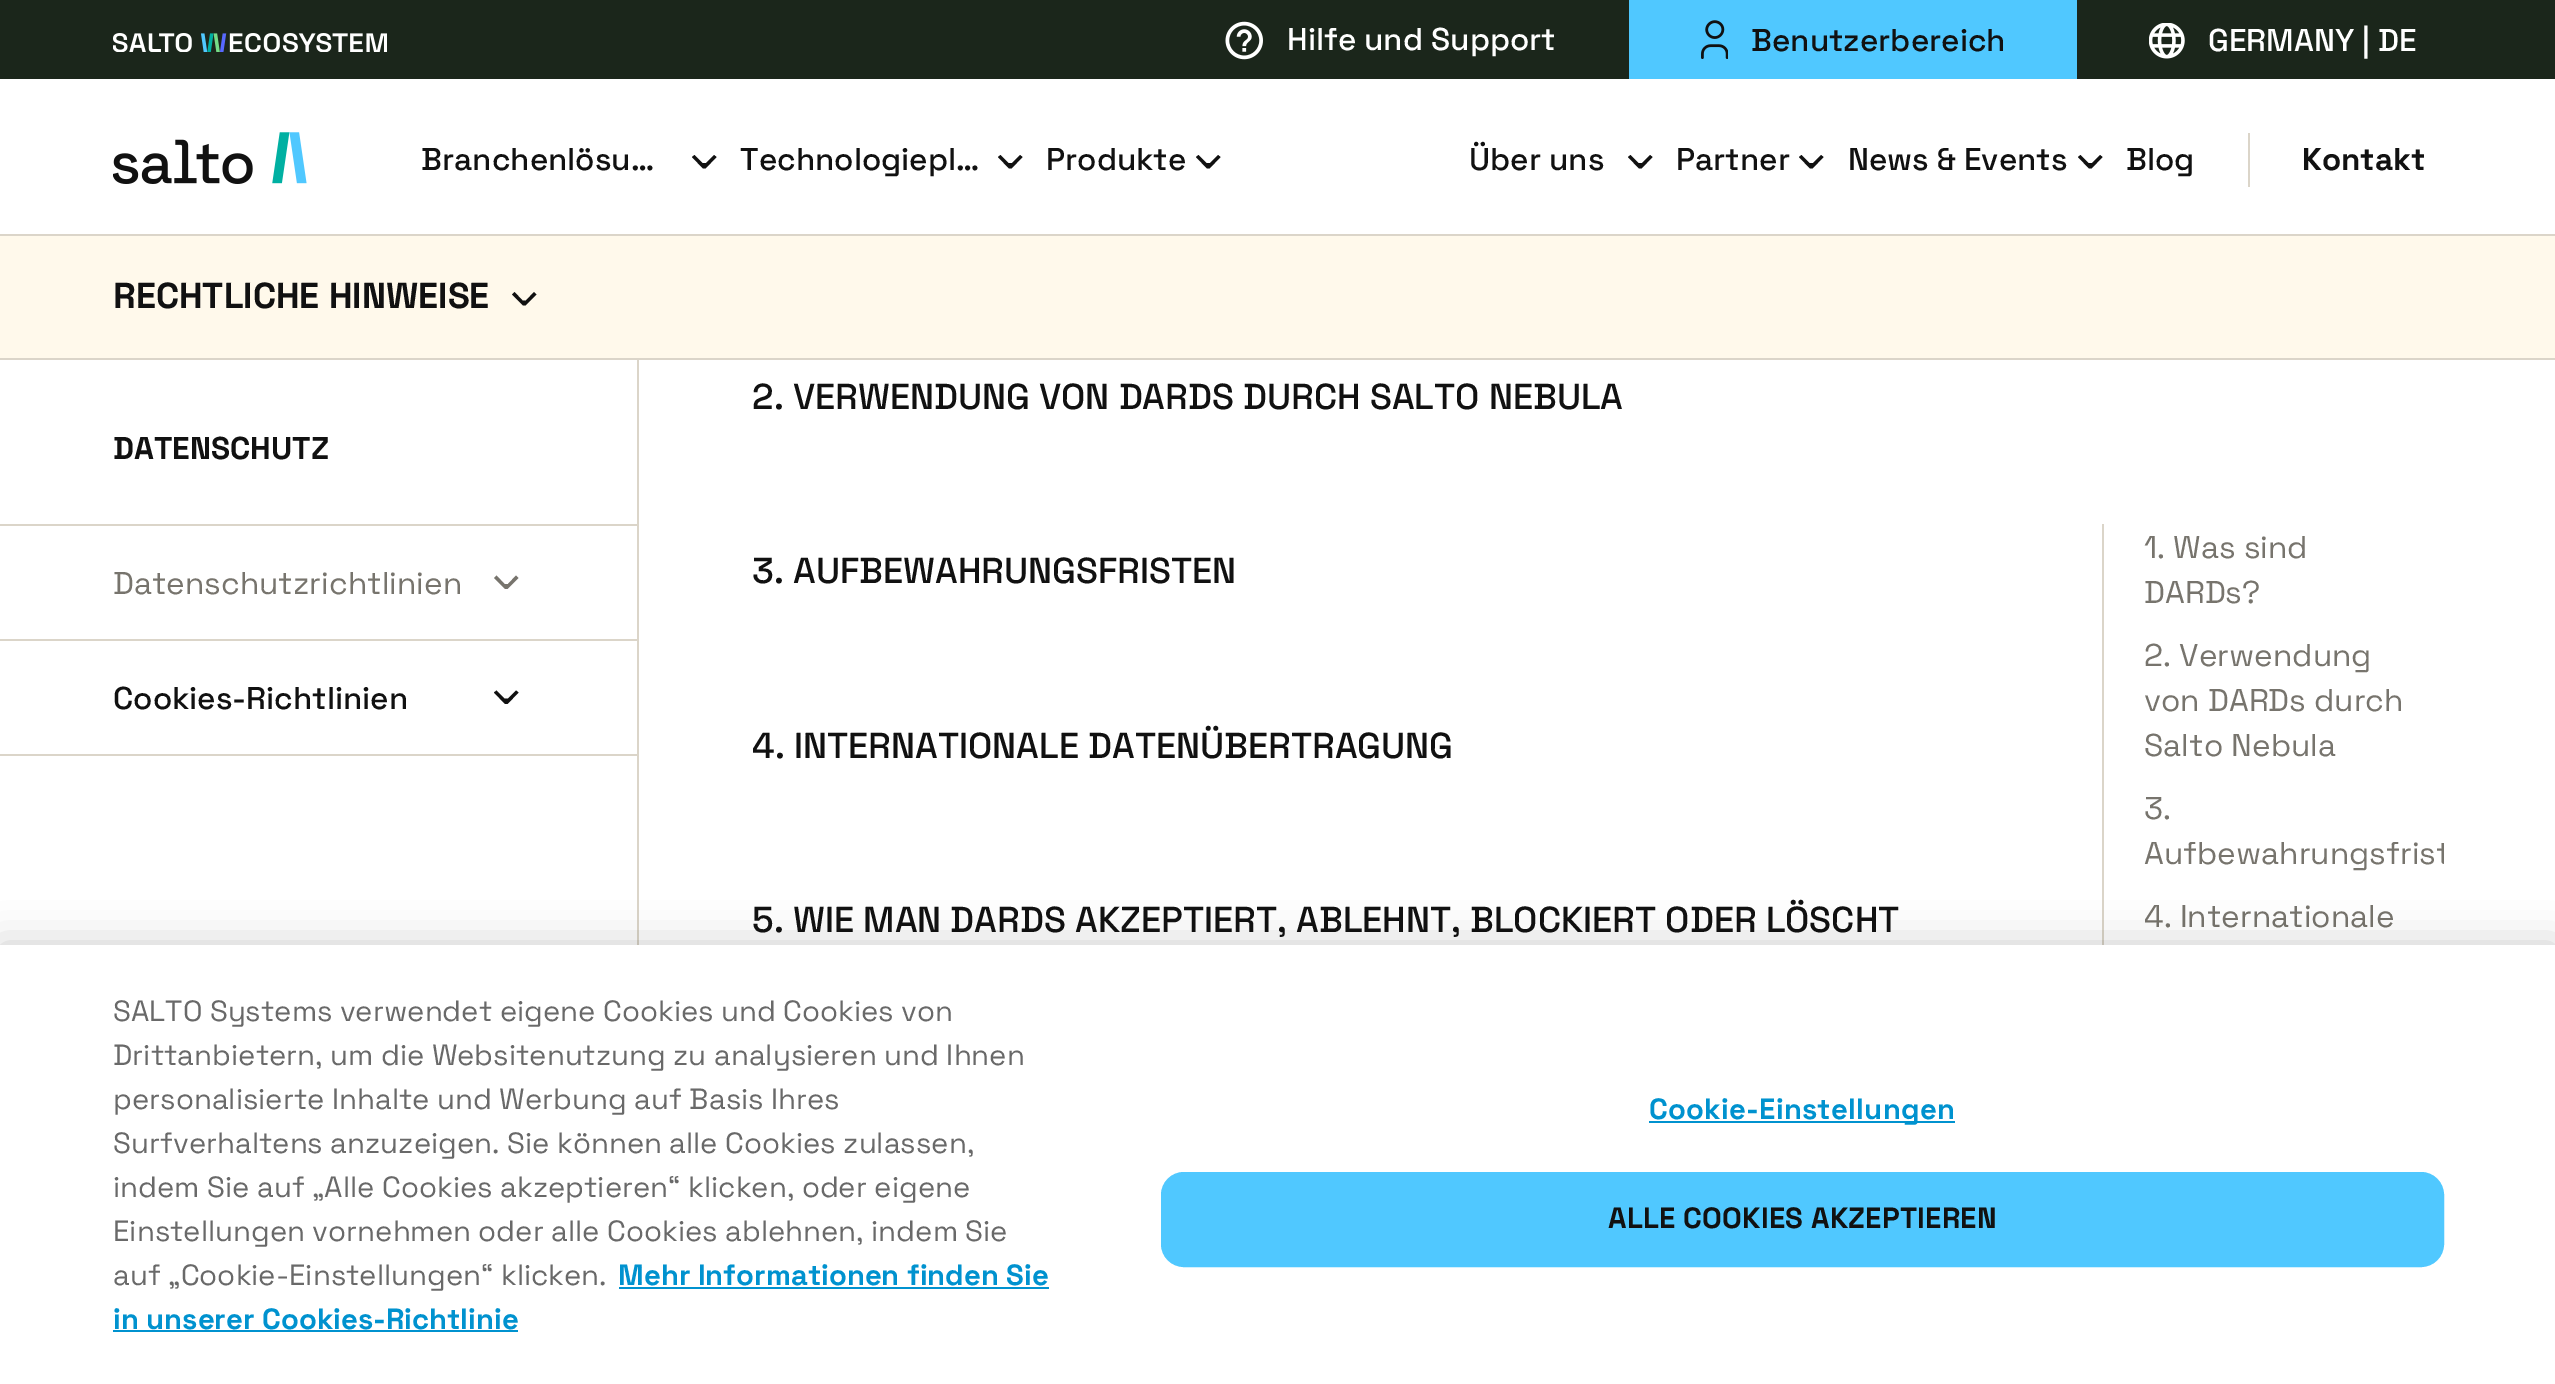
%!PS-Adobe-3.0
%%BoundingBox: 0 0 2555 1384
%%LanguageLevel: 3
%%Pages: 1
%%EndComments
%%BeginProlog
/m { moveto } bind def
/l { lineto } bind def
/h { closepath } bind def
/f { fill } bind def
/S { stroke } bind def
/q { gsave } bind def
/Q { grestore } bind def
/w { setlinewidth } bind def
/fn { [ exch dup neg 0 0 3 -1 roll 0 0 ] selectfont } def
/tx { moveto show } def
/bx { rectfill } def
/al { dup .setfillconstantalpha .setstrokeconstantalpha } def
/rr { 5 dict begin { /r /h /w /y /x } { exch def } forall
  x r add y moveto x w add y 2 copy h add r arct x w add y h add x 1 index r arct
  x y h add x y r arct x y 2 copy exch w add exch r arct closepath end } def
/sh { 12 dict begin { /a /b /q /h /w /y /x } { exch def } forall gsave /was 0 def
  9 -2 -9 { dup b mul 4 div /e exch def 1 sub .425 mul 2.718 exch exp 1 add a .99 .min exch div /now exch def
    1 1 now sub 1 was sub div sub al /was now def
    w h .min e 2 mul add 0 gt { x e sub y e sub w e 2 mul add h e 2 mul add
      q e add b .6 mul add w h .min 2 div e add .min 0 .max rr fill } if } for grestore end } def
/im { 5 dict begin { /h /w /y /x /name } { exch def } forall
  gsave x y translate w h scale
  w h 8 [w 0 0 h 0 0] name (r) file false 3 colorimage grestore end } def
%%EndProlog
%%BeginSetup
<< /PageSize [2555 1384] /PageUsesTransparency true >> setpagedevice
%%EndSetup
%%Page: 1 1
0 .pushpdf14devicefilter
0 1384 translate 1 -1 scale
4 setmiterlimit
1 setgray
0 0 2555 1384 bx
0.106 0.149 0.106 setrgbcolor
0 0 2555 79 bx
(image0.raw) 113 33 274 19 im
(image1.raw) 1225 21 38 39 im
/SpaceGrotesk-Medium 31.5 fn
1 setgray
(Hilfe und Support) 1287 50 tx
0.314 0.784 1 setrgbcolor
1629 0 448 79 bx
(image2.raw) 1701 20 27 39 im
0.067 setgray
(Benutzerbereich) 1751 51 tx
(image3.raw) 2149 23 36 36 im
1 setgray
(GERMANY | DE) 2208 51 tx
0.859 0.835 0.788 setrgbcolor
0 234 2555 2 bx
(image4.raw) 113 132 194 52 im
0.067 setgray
(Branchenlösu…) 421 170 tx
692 157 m 694.5 155 l 702.5 163 l 706 163 l 714 155 l 716.5 157 l 705.5 168.5 l 703 168.5 l h f
(Technologiepl…) 740 170 tx
998 157 m 1000.5 155 l 1008.5 163 l 1012 163 l 1020 155 l 1022.5 157 l 1011.5 168.5 l 1009 168.5 l h f
(Produkte) 1046 170 tx
1196 157 m 1198.5 155 l 1206.5 163 l 1210 163 l 1218 155 l 1220.5 157 l 1209.5 168.5 l 1207 168.5 l h f
(Über uns) 1469 170 tx
1628 157 m 1630.5 155 l 1638.5 163 l 1642 163 l 1650 155 l 1652.5 157 l 1641.5 168.5 l 1639 168.5 l h f
(Partner) 1676 170 tx
1799 157 m 1801.5 155 l 1809.5 163 l 1813 163 l 1821 155 l 1823.5 157 l 1812.5 168.5 l 1810 168.5 l h f
(News & Events) 1848 170 tx
2078 157 m 2080.5 155 l 2088.5 163 l 2092 163 l 2100 155 l 2102.5 157 l 2091.5 168.5 l 2089 168.5 l h f
(Blog) 2126 170 tx
0.859 0.835 0.788 setrgbcolor
2248 133 2 54 bx
/SpaceGrotesk-Bold 31.5 fn
0.067 setgray
(Kontakt) 2302 170 tx
1 0.976 0.922 setrgbcolor
0 236 2555 122 bx
0.859 0.835 0.788 setrgbcolor
0 358 2555 2 bx
/SpaceGrotesk-Bold 36 fn
0.067 setgray
(RECHTLICHE HINWEISE) 113 308 tx
512 294.5 m 514.5 292 l 522.5 300.5 l 526 300.5 l 534 292 l 536.5 294.5 l 525.5 305.5 l 523 305.5 l h f
0.859 0.835 0.788 setrgbcolor
637 360 2 585 bx
0 524 637 2 bx
/SpaceGrotesk-Bold 31.5 fn
0.067 setgray
(DATENSCHUTZ) 113 459 tx
0.859 0.835 0.788 setrgbcolor
0 639 637 2 bx
/SpaceGrotesk-Regular 31.5 fn
0.467 0.455 0.427 setrgbcolor
(Datenschutzrichtlinien) 113 594 tx
494 578 m 496.5 575.5 l 504.5 584 l 508 584 l 516 575.5 l 518.5 578 l 507.5 589 l 505 589 l h f
0.859 0.835 0.788 setrgbcolor
0 754 637 2 bx
/SpaceGrotesk-Medium 31.5 fn
0.067 setgray
(Cookies-Richtlinien) 113 709 tx
494 692.5 m 496.5 690.5 l 504.5 698.5 l 508 698.5 l 516 690.5 l 518.5 692.5 l 507.5 704 l 505 704 l h f
/SpaceGrotesk-Medium 36 fn
(2. VERWENDUNG VON DARDS DURCH SALTO NEBULA) 752 409 tx
(3. AUFBEWAHRUNGSFRISTEN) 752 583 tx
(4. INTERNATIONALE DATENÜBERTRAGUNG) 752 758 tx
(5. WIE MAN DARDS AKZEPTIERT, ABLEHNT, BLOCKIERT ODER LÖSCHT) 752 932 tx
0.859 0.835 0.788 setrgbcolor
2102 524 2 421 bx
/SpaceGrotesk-Regular 31.5 fn
0.467 0.455 0.427 setrgbcolor
(1. Was sind) 2144 558 tx
(DARDs?) 2144 603 tx
(2. Verwendung) 2144 666 tx
(von DARDs durch) 2144 711 tx
(Salto Nebula) 2144 756 tx
(3.) 2144 819 tx
q
2088 506 356 457 rectclip
(Aufbewahrungsfrist) 2144 864 tx
Q
(4. Internationale) 2144 927 tx
0 setgray
0 945 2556 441 0 20 0.2 sh
1 setgray
0 945 2555 439 bx
/SpaceGrotesk-Regular 29.25 fn
0.412 setgray
(SALTO Systems verwendet eigene Cookies und Cookies von) 113 1021 tx
(Drittanbietern, um die Websitenutzung zu analysieren und Ihnen) 113 1065 tx
(personalisierte Inhalte und Werbung auf Basis Ihres) 113 1109 tx
(Surfverhaltens anzuzeigen. Sie können alle Cookies zulassen,) 113 1153 tx
(indem Sie auf „Alle Cookies akzeptieren“ klicken, oder eigene) 113 1197 tx
(Einstellungen vornehmen oder alle Cookies ablehnen, indem Sie) 113 1241 tx
(auf „Cookie-Einstellungen“ klicken.) 113 1285 tx
/SpaceGrotesk-Bold 29.25 fn
0 0.573 0.812 setrgbcolor
(Mehr Informationen finden Sie) 618 1285 tx
619 1287 430 2 bx
(in unserer Cookies-Richtlinie) 113 1329 tx
113 1330 405 2 bx
1649 1121 306 2 bx
1649 1119 m 0.25 0 (Cookie-Einstellungen) ashow
0.314 0.784 1 setrgbcolor
1162 1173 1281 93 22 rr q f Q
2 w
S
0.067 setgray
1608 1228 m 0.25 0 (ALLE COOKIES AKZEPTIEREN) ashow
.poppdf14devicefilter showpage
%%EOF
